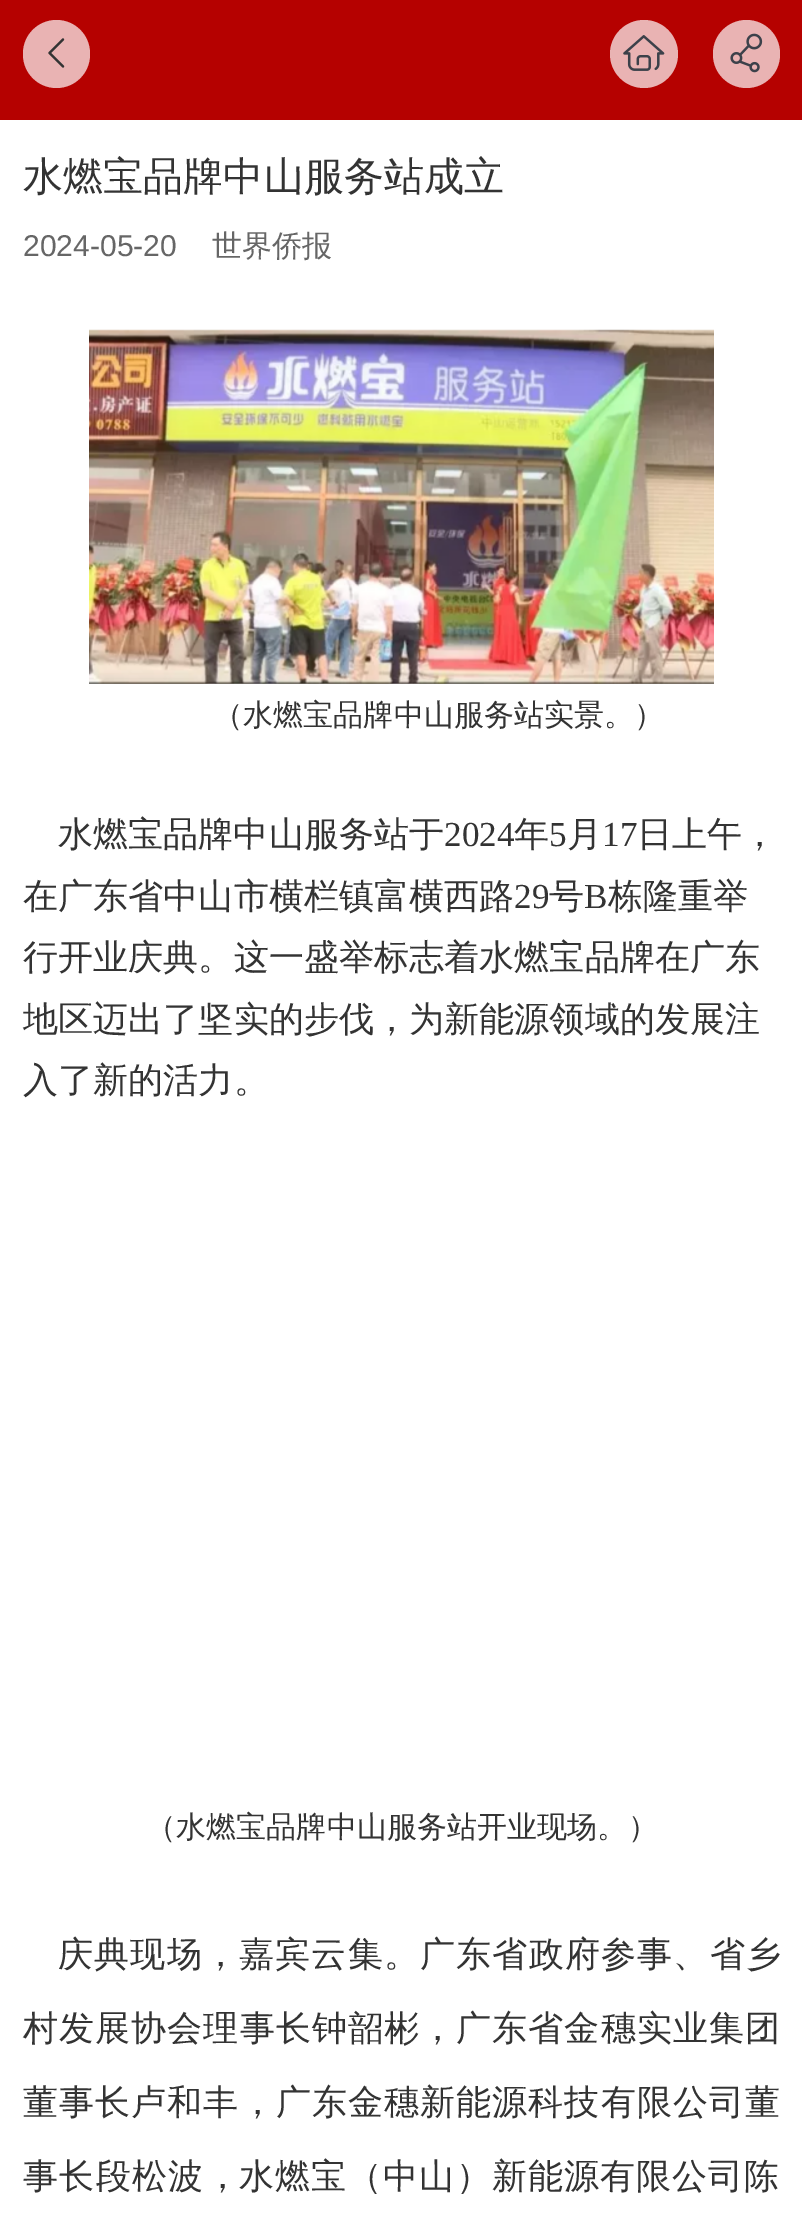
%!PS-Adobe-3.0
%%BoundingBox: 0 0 802 2224
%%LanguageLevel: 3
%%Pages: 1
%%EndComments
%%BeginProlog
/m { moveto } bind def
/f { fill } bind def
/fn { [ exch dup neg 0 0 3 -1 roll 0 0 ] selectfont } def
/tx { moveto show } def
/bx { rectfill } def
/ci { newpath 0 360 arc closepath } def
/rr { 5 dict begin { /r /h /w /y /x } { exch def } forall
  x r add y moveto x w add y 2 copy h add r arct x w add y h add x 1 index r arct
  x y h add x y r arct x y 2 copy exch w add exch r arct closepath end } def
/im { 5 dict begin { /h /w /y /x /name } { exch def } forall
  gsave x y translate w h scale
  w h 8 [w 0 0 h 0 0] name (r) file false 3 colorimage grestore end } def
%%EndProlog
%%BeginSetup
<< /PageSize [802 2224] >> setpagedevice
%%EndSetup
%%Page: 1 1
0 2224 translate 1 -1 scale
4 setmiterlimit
1 setgray
0 0 802 2224 bx
0.71 0.004 0 setrgbcolor
0 0 802 120 bx
0.914 0.702 0.702 setrgbcolor
23 20 67 68 33.5 rr f
(image0.raw) 48 38 17 30 im
644 54 34 ci f
(image1.raw) 623 35 42 36 im
713 20 67 68 33.5 rr f
(image2.raw) 730 33 33 40 im
/WenQuanYiZenHei-Medium 40.1 fn
0.2 setgray
(水燃宝品牌中山服务站成立) 23 190 tx
/LiberationSans-Regular 30.1 fn
0.4 setgray
(2024-05-20) 23 256 tx
/WenQuanYiZenHei-Medium 30.1 fn
(世界侨报) 212 256 tx
(image3.raw) 89 329 625 355 im
0.2 setgray
(（水燃宝品牌中山服务站实景。）) 213 725 tx
/WenQuanYiZenHei-Medium 35.1 fn
(水燃宝品牌中山服务站于) 58 846 tx
/LiberationSerif-Regular 35.1 fn
(2024) 444 846 tx
/WenQuanYiZenHei-Medium 35.1 fn
(年) 514 846 tx
/LiberationSerif-Regular 35.1 fn
(5) 549 846 tx
/WenQuanYiZenHei-Medium 35.1 fn
(月) 567 846 tx
/LiberationSerif-Regular 35.1 fn
(17) 602 846 tx
/WenQuanYiZenHei-Medium 35.1 fn
(日上午，) 637 846 tx
(在广东省中山市横栏镇富横西路) 23 908 tx
/LiberationSerif-Regular 35.1 fn
(29) 514 908 tx
/WenQuanYiZenHei-Medium 35.1 fn
(号) 549 908 tx
/LiberationSerif-Regular 35.1 fn
(B) 584 908 tx
/WenQuanYiZenHei-Medium 35.1 fn
(栋隆重举) 608 908 tx
(行开业庆典。这一盛举标志着水燃宝品牌在广东) 23 969 tx
(地区迈出了坚实的步伐，为新能源领域的发展注) 23 1031 tx
(入了新的活力。) 23 1092 tx
/WenQuanYiZenHei-Medium 30.1 fn
(（水燃宝品牌中山服务站开业现场。）) 146 1837 tx
/WenQuanYiZenHei-Medium 35.1 fn
58 1966 m 1.1 0 (庆典现场，嘉宾云集。广东省政府参事、省乡) ashow
23 2040 m 1 0 (村发展协会理事长钟韶彬，广东省金穗实业集团) ashow
23 2114 m 1 0 (董事长卢和丰，广东金穗新能源科技有限公司董) ashow
23 2188 m 1.25 0 (事长段松波，) ashow
239 2188 m 1 0 (水燃宝（中山）新能源有限公司陈) ashow
showpage
%%EOF
